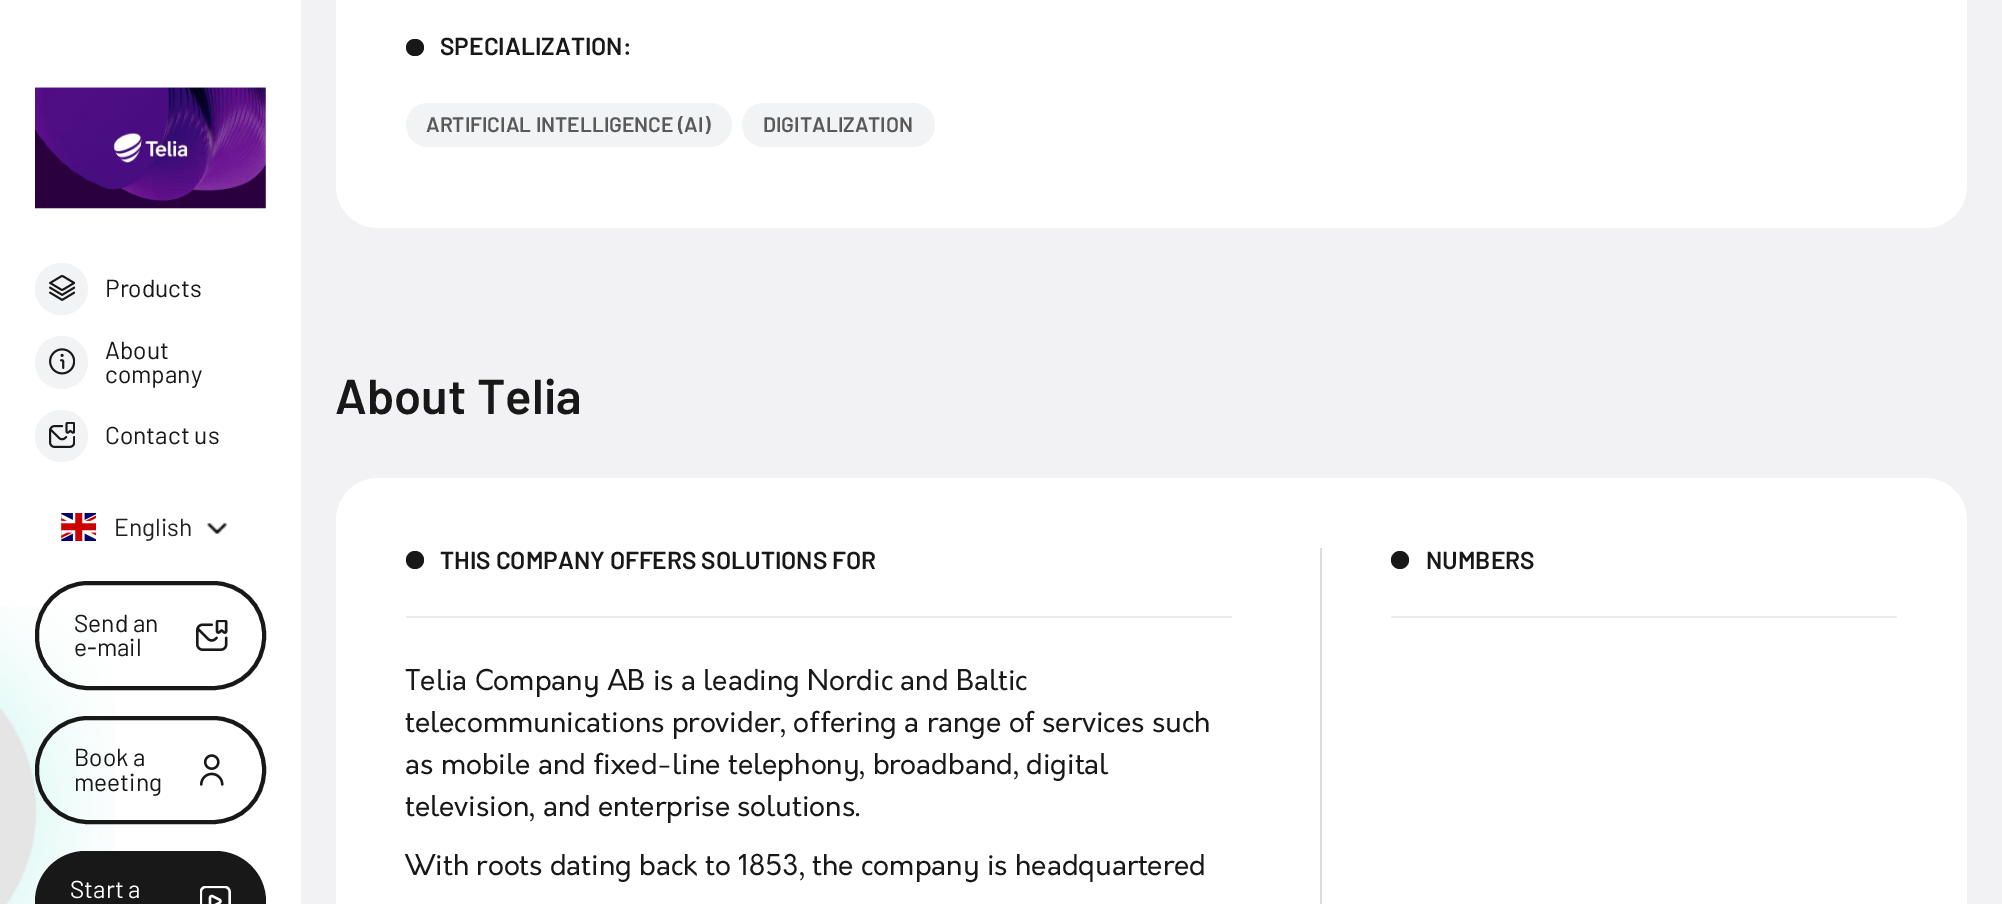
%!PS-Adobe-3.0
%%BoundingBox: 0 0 2002 904
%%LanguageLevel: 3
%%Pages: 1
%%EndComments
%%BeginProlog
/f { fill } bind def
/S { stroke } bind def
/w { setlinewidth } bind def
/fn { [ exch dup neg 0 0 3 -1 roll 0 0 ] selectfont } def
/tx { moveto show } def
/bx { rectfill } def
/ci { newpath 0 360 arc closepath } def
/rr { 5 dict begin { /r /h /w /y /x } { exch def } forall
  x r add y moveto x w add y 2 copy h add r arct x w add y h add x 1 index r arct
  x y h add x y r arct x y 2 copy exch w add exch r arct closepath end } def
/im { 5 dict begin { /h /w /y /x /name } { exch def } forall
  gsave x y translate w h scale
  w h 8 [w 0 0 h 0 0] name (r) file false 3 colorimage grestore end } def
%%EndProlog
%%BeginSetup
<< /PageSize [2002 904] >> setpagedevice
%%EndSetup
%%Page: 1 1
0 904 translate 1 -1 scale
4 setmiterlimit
0.949 0.949 0.961 setrgbcolor
0 0 2002 904 bx
1 setgray
0 0 301 904 bx
(image0.raw) 35 87 231 122 im
0.949 0.953 0.961 setrgbcolor
35 263 53 52 26 rr f
(image1.raw) 49 275 26 26 im
/Barlow-Regular 24.5 fn
0.094 setgray
(Products) 105 297 tx
0.949 0.953 0.961 setrgbcolor
61.5 362.5 26.5 ci f
(image2.raw) 49 348 26 27 im
0.094 setgray
(About) 105 359 tx
(company) 105 383 tx
0.949 0.953 0.961 setrgbcolor
35 410 53 52 26 rr f
(image3.raw) 49 422 26 26 im
0.094 setgray
(Contact us) 105 444 tx
(image4.raw) 61 513 35 28 im
0.133 setgray
(English) 114 536 tx
(image5.raw) 207 523 21 11 im
(image6.raw) 0 606 115 298 im
0.094 setgray
4 w
37 583 227 105 51 rr S
(Send an) 74 632 tx
(e-mail) 74 656 tx
(image7.raw) 196 620 32 31 im
37 718 227 104 51 rr S
(Book a) 74 766 tx
(meeting) 74 791 tx
(image8.raw) 199 754 25 32 im
35 851 231 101 50.5 rr f
1 setgray
(Start a) 70 898 tx
(image9.raw) 200 886 31 18 im
336 -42 1631 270 42 rr f
0.094 setgray
406 39 18 17 8.5 rr f
/Barlow-SemiBold 24.5 fn
(SPECIALIZATION:) 440 55 tx
0.949 0.953 0.961 setrgbcolor
406 103 326 44 22 rr f
/Barlow-SemiBold 21 fn
0.349 setgray
(ARTIFICIAL INTELLIGENCE \(AI\)) 426 132 tx
0.949 0.953 0.961 setrgbcolor
742 103 193 44 22 rr f
0.349 setgray
(DIGITALIZATION) 763 132 tx
/Barlow-SemiBold 49 fn
0.094 setgray
(About) 335 414 tx
(Telia) 477 414 tx
1 setgray
336 478 1631 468 42 rr f
0.918 0.922 0.929 setrgbcolor
406 616 826 2 bx
0.094 setgray
415 560 9 ci f
/Barlow-SemiBold 24.5 fn
(THIS COMPANY OFFERS SOLUTIONS FOR) 440 569 tx
/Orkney-Regular 28 fn
(Telia Company AB is a leading Nordic and Baltic) 405 690 tx
(telecommunications provider, offering a range of services such) 405 732 tx
(as mobile and fixed-line telephony, broadband, digital) 405 774 tx
(television, and enterprise solutions.) 405 816 tx
(With roots dating back to 1853, the company is headquartered) 405 875 tx
0.867 setgray
1320 548 2 356 bx
0.918 0.922 0.929 setrgbcolor
1391 616 506 2 bx
0.094 setgray
1400 560 9 ci f
/Barlow-SemiBold 24.5 fn
(NUMBERS) 1426 569 tx
showpage
%%EOF
